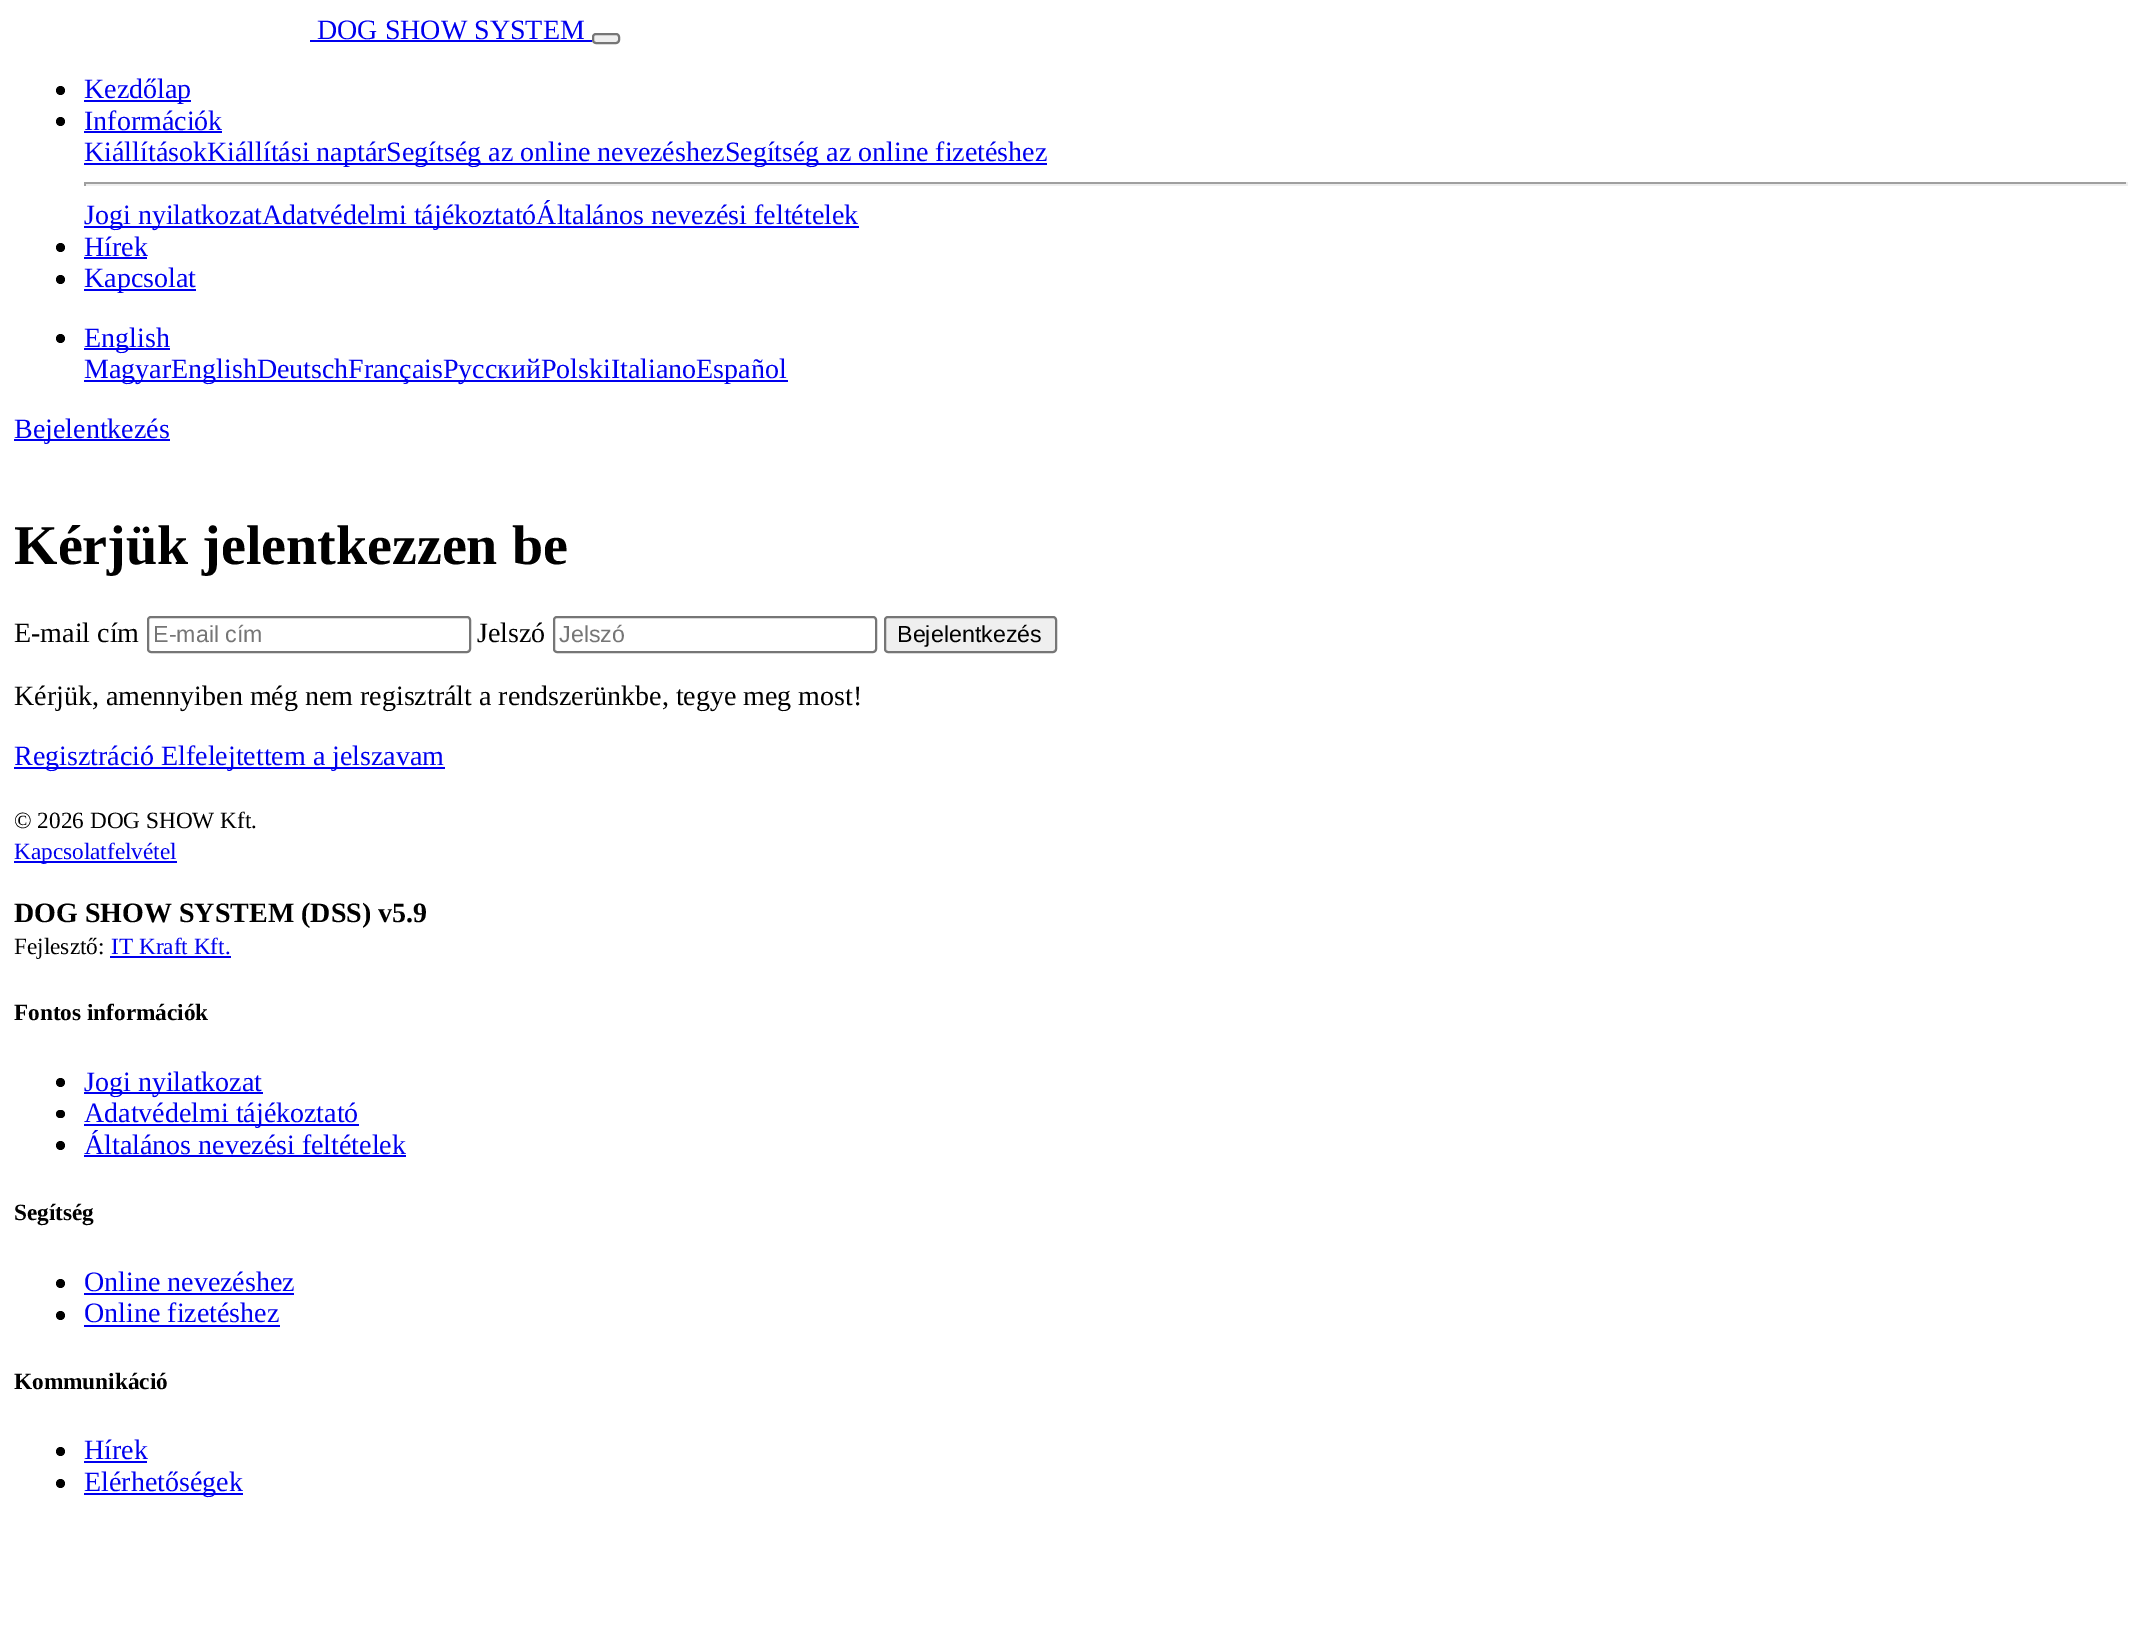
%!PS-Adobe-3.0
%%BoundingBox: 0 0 2141 1646
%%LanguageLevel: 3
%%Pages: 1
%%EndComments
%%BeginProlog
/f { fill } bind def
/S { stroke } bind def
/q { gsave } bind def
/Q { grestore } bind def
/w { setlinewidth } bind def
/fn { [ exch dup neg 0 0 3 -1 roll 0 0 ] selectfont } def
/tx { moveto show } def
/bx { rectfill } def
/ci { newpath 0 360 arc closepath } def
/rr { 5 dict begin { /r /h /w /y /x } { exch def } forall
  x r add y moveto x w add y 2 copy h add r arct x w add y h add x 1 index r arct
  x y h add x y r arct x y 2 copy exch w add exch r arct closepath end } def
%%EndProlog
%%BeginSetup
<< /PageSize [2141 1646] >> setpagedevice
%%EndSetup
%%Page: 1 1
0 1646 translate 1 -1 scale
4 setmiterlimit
1 setgray
0 0 2141 1646 bx
/LiberationSerif-Regular 28 fn
0 0 0.933 setrgbcolor
(DOG SHOW SYSTEM) 317 39 tx
310 40 282 2 bx
0.937 setgray
593 34 26 9 3 rr q f Q
0.463 setgray
2 w
S
0 setgray
60.5 90.5 4.5 ci f
0 0 0.933 setrgbcolor
84 100 107 2 bx
(Kezdőlap) 84 98 tx
0 setgray
60.5 121.5 4.5 ci f
0 0 0.933 setrgbcolor
(Információk) 84 130 tx
84 131 138 2 bx
84 163 963 2 bx
(KiállításokKiállítási naptárSegítség az online nevezéshezSegítség az online fizetéshez) 84 161 tx
0.624 setgray
84 182 2044 2 bx
0.933 setgray
2126 182 2 4 bx
84 184 2044 2 bx
0.624 setgray
84 182 2 4 bx
0 0 0.933 setrgbcolor
84 226 775 2 bx
(Jogi nyilatkozatAdatvédelmi tájékoztatóÁltalános nevezési feltételek) 84 224 tx
0 setgray
60.5 247.5 4.5 ci f
0 0 0.933 setrgbcolor
(Hírek) 84 256 tx
84 257 63 2 bx
0 setgray
60.5 279.5 4.5 ci f
0 0 0.933 setrgbcolor
84 289 112 2 bx
(Kapcsolat) 84 287 tx
0 setgray
60.5 338.5 4.5 ci f
0 0 0.933 setrgbcolor
84 348 86 2 bx
(English) 84 347 tx
84 380 264 2 bx
(MagyarEnglishDeutsch) 84 378 tx
348 380 440 2 bx
(FrançaisPусскийPolskiItalianoEspañol) 348 378 tx
14 439 156 2 bx
(Bejelentkezés) 14 438 tx
/LiberationSerif-Bold 56 fn
0 setgray
(Kérjük jelentkezzen be) 14 564 tx
/LiberationSerif-Regular 28 fn
(E-mail cím) 14 642 tx
0.463 setgray
148 617 322 35 3 rr S
/LiberationSans-Regular 23.25 fn
0.459 setgray
(E-mail cím) 153 642 tx
/LiberationSerif-Regular 28 fn
0 setgray
(Jelszó) 477 642 tx
0.463 setgray
554 617 322 35 3 rr S
/LiberationSans-Regular 23.25 fn
0.459 setgray
(Jelszó) 559 642 tx
0.937 setgray
885 617 171 35 3 rr q f Q
0.463 setgray
S
0 setgray
(Bejelentkezés) 897 642 tx
/LiberationSerif-Regular 28 fn
(Kérjük, amennyiben még nem regisztrált a rendszerünkbe, tegye meg most!) 14 705 tx
0 0 0.933 setrgbcolor
14 767 431 2 bx
(Regisztráció Elfelejtettem a jelszavam) 14 765 tx
/LiberationSerif-Regular 23.25 fn
0 setgray
(© 2026 DOG SHOW Kft.) 14 828 tx
0 0 0.933 setrgbcolor
14 861 163 2 bx
(Kapcsolatfelvétel) 14 859 tx
/LiberationSerif-Bold 28 fn
0 setgray
(DOG SHOW SYSTEM \(DSS\) v5.9) 14 922 tx
/LiberationSerif-Regular 23.25 fn
(Fejlesztő:) 14 954 tx
0 0 0.933 setrgbcolor
(IT Kraft Kft.) 111 954 tx
110 956 121 2 bx
/LiberationSerif-Bold 23.25 fn
0 setgray
(Fontos információk) 14 1020 tx
60.5 1082.5 4.5 ci f
0 0 0.933 setrgbcolor
84 1092 179 2 bx
/LiberationSerif-Regular 28 fn
(Jogi nyilatkozat) 84 1091 tx
0 setgray
56 1110 9 8 4 rr f
0 0 0.933 setrgbcolor
84 1124 275 2 bx
(Adatvédelmi tájékoztató) 84 1122 tx
0 setgray
60.5 1145.5 4.5 ci f
0 0 0.933 setrgbcolor
(Általános nevezési feltételek) 84 1154 tx
84 1155 322 2 bx
/LiberationSerif-Bold 23.25 fn
0 setgray
(Segítség) 14 1220 tx
60.5 1283.5 4.5 ci f
/LiberationSerif-Regular 28 fn
0 0 0.933 setrgbcolor
(Online nevezéshez) 84 1291 tx
84 1293 210 2 bx
0 setgray
60.5 1315.5 4.5 ci f
0 0 0.933 setrgbcolor
(Online fizetéshez) 84 1322 tx
84 1325 196 2 bx
/LiberationSerif-Bold 23.25 fn
0 setgray
(Kommunikáció) 14 1389 tx
60.5 1451.5 4.5 ci f
/LiberationSerif-Regular 28 fn
0 0 0.933 setrgbcolor
(Hírek) 84 1459 tx
84 1461 63 2 bx
0 setgray
60.5 1483.5 4.5 ci f
0 0 0.933 setrgbcolor
84 1493 159 2 bx
(Elérhetőségek) 84 1491 tx
showpage
%%EOF
